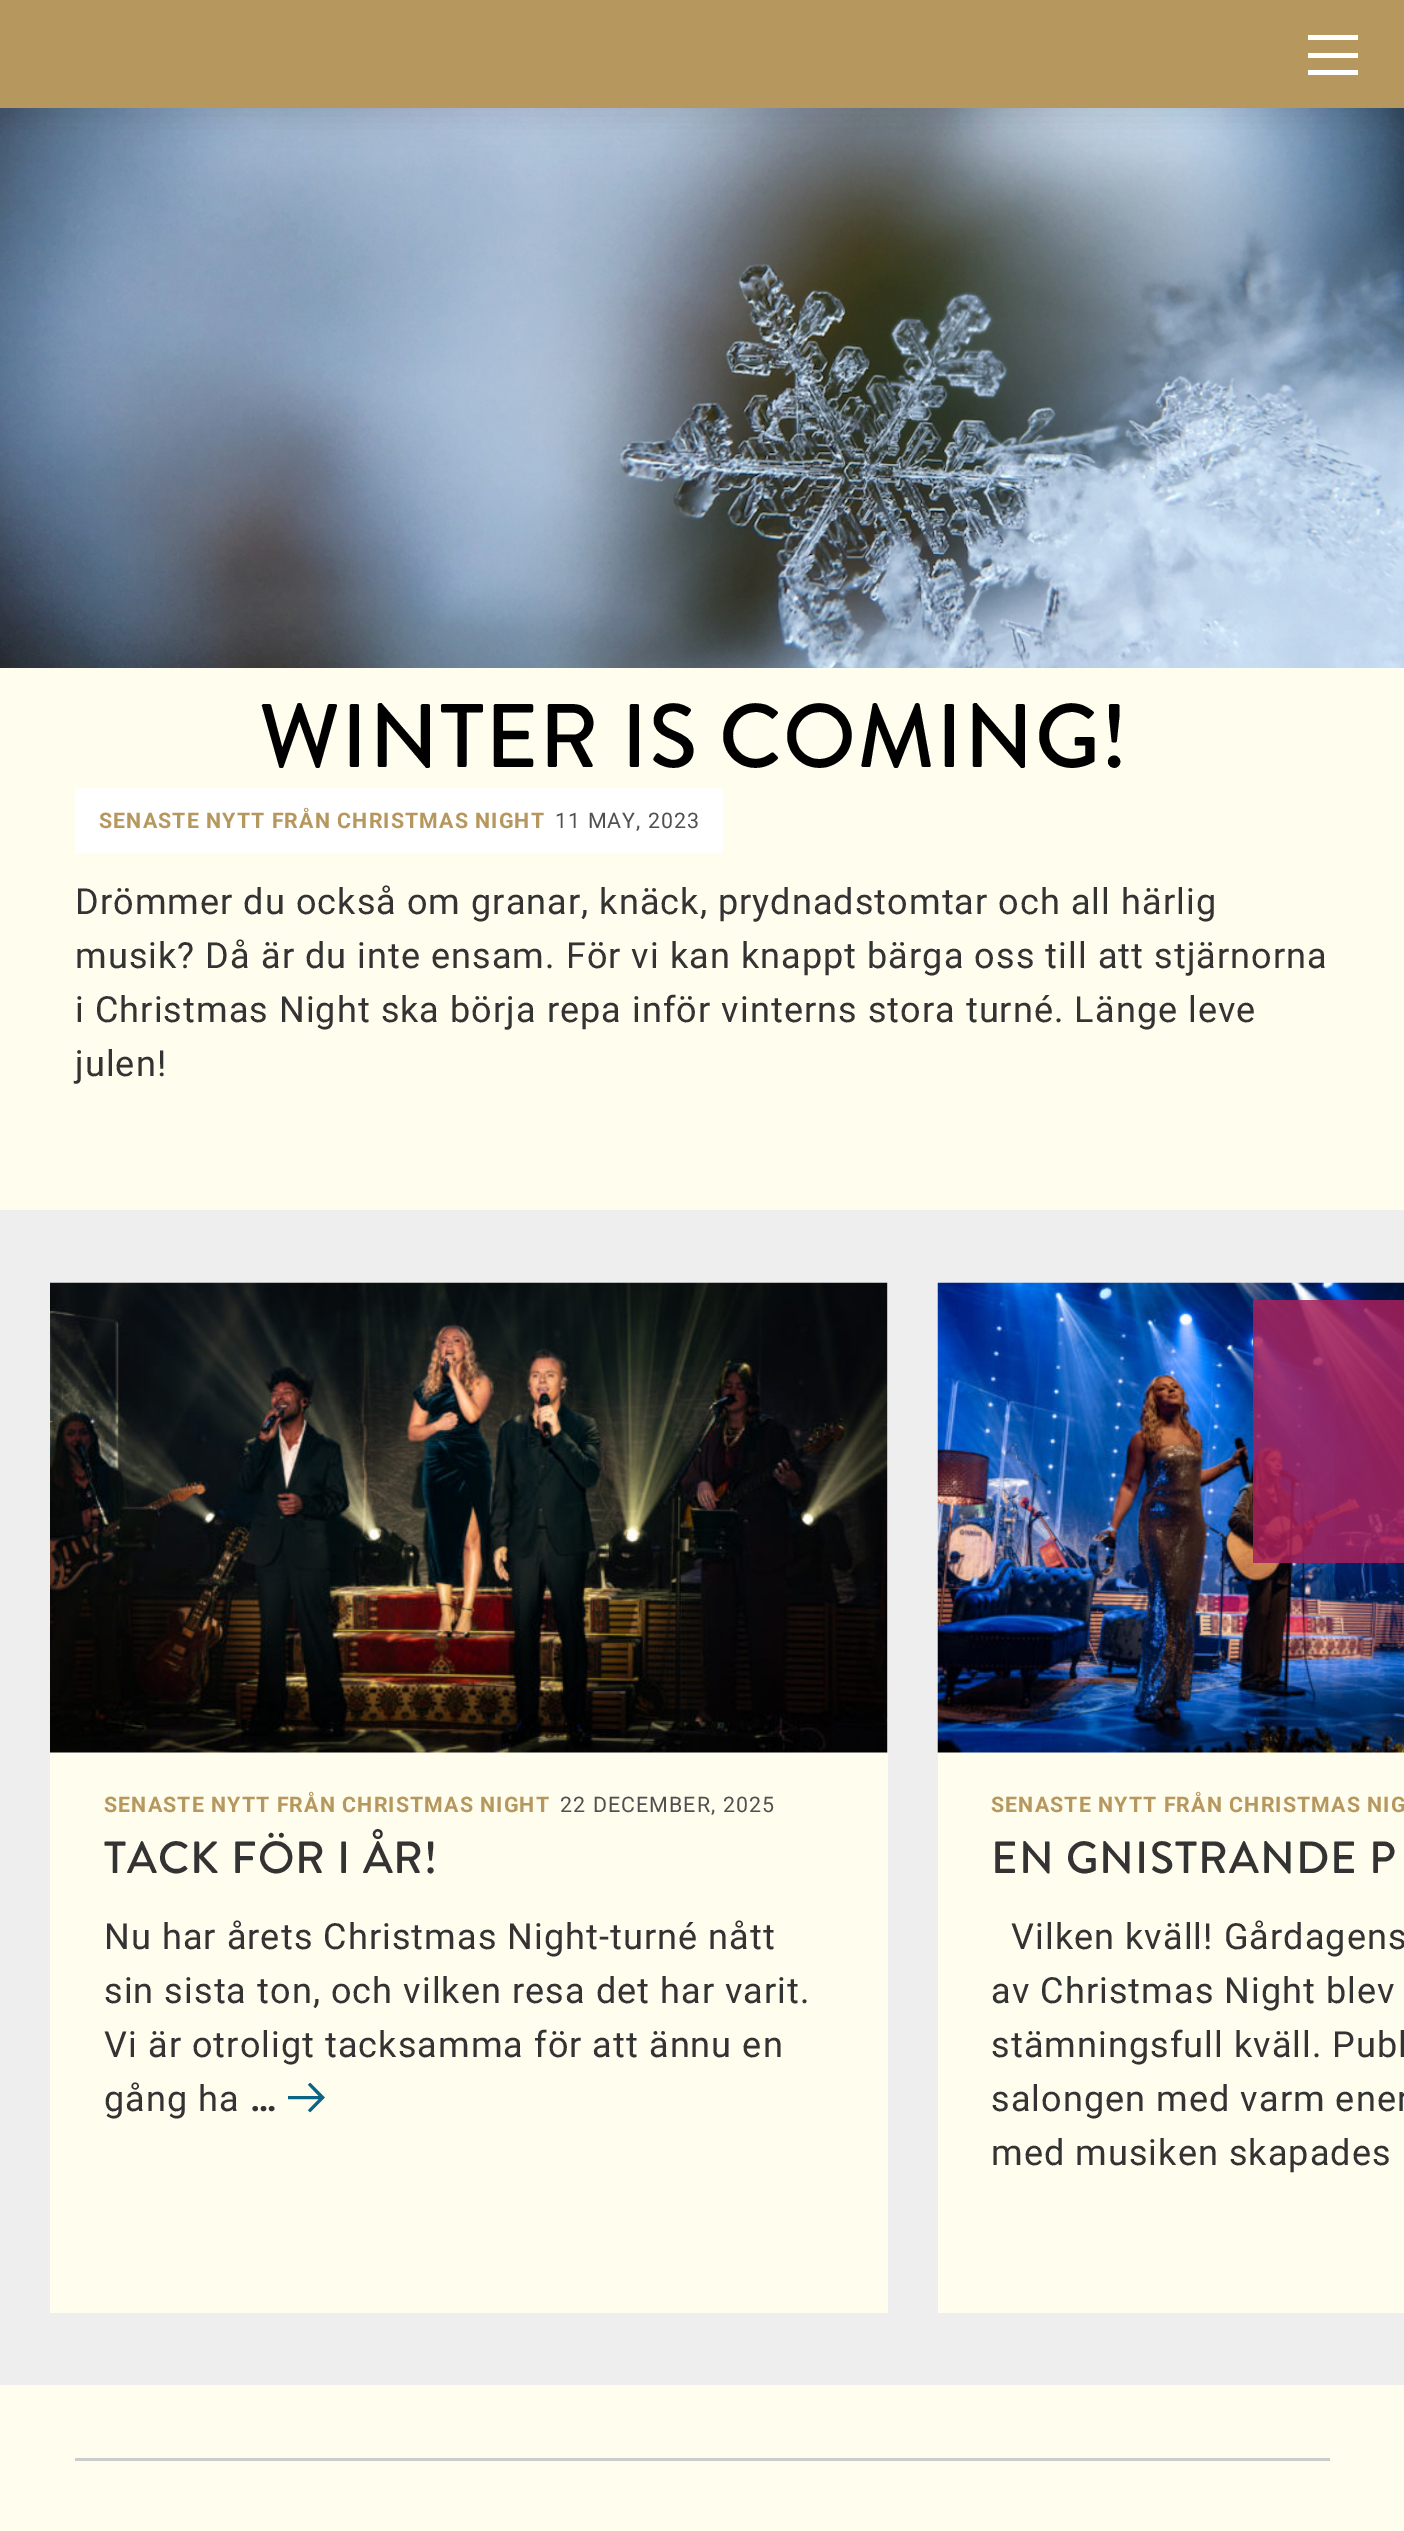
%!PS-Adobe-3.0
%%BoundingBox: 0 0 1404 2531
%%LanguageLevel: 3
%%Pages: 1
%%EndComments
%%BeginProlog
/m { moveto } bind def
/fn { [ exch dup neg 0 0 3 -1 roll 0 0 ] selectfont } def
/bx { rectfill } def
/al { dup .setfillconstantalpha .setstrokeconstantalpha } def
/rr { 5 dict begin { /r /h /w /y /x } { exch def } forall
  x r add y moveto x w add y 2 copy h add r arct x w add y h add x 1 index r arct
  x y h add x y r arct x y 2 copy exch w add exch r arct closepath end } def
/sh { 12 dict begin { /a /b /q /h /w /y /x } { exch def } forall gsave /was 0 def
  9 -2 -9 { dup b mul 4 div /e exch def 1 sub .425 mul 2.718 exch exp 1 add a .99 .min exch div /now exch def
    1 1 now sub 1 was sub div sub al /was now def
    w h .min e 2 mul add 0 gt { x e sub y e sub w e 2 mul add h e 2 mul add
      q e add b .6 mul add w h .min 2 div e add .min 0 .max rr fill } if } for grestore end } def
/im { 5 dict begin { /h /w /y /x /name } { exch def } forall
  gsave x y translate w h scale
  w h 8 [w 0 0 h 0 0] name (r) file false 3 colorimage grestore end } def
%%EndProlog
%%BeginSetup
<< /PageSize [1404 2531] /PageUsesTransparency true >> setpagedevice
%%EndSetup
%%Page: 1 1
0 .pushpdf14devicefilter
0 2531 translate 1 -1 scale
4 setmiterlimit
1 0.992 0.933 setrgbcolor
0 0 1404 2531 bx
(image0.raw) 0 108 1404 560 im
0 setgray
0 13 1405 107 0 12.5 0.1 sh
0.714 0.592 0.369 setrgbcolor
0 0 1404 108 bx
1 setgray
1308 35 50 5 bx
1308 53 50 5 bx
1308 70 50 5 bx
/BrandonGrotesque-Medium 90 fn
0 setgray
259 767 m 1.08 0 (WINTER IS COMING!) ashow
1 setgray
75 788 648 65 bx
/Roboto-Bold 21.4 fn
0.714 0.592 0.369 setrgbcolor
99 828 m 1.08 0 (SENASTE NYTT FRÅN CHRISTMAS NIGHT) ashow
/Roboto-Regular 21.4 fn
0.314 setgray
555 828 m 1.08 0 (11 MAY, 2023) ashow
/Roboto-Regular 36 fn
0.2 setgray
75 914 m 1.08 0 (Drömmer du också om granar, knäck, prydnadstomtar och all härlig) ashow
75 968 m 1.08 0 (musik? Då är du inte ensam. För vi kan knappt bärga oss till att stjärnorna) ashow
75 1022 m 1.08 0 (i Christmas Night ska börja repa inför vinterns stora turné. Länge leve) ashow
75 1076 m 1.08 0 (julen!) ashow
0.933 setgray
0 1210 1404 1175 bx
1 0.992 0.933 setrgbcolor
938 1752 466 561 bx
(image3.raw) 937 1282 467 471 im
0.85 al
0.655 0.122 0.353 setrgbcolor
1253 1300 151 263 bx
1 al
1 0.992 0.933 setrgbcolor
50 1283 838 1030 bx
(image1.raw) 50 1282 838 471 im
/Roboto-Bold 21.4 fn
0.714 0.592 0.369 setrgbcolor
104 1812 m 1.08 0 (SENASTE NYTT FRÅN CHRISTMAS NIGHT) ashow
/Roboto-Regular 21.4 fn
0.314 setgray
560 1812 m 1.08 0 (22 DECEMBER, 2025) ashow
/BrandonGrotesque-Medium 45 fn
0.2 setgray
104 1873 m 1.08 0 (TACK FÖR I ÅR!) ashow
/Roboto-Regular 36 fn
104 1949 m 1.08 0 (Nu har årets Christmas Night-turné nått) ashow
104 2003 m 1.08 0 (sin sista ton, och vilken resa det har varit.) ashow
104 2057 m 1.08 0 (Vi är otroligt tacksamma för att ännu en) ashow
104 2111 m 1.08 0 (gång ha) ashow
/Roboto-Bold 36 fn
250 2111 m 1.08 0 (…) ashow
(image2.raw) 288 2083 37 30 im
/Roboto-Bold 21.4 fn
0.714 0.592 0.369 setrgbcolor
991 1812 m 1.08 0 (SENASTE NYTT FRÅN CHRISTMAS NIG) ashow
/BrandonGrotesque-Medium 45 fn
0.2 setgray
991 1873 m 1.08 0 (EN GNISTRANDE P) ashow
/Roboto-Regular 36 fn
1011 1949 m 1.08 0 (Vilken kväll! Gårdagens) ashow
991 2003 m 1.08 0 (av Christmas Night blev) ashow
991 2057 m 1.08 0 (stämningsfull kväll. Publ) ashow
991 2111 m 1.08 0 (salongen med varm ener) ashow
991 2165 m 1.08 0 (med musiken skapades) ashow
0.8 setgray
75 2458 1255 3 bx
.poppdf14devicefilter showpage
%%EOF
